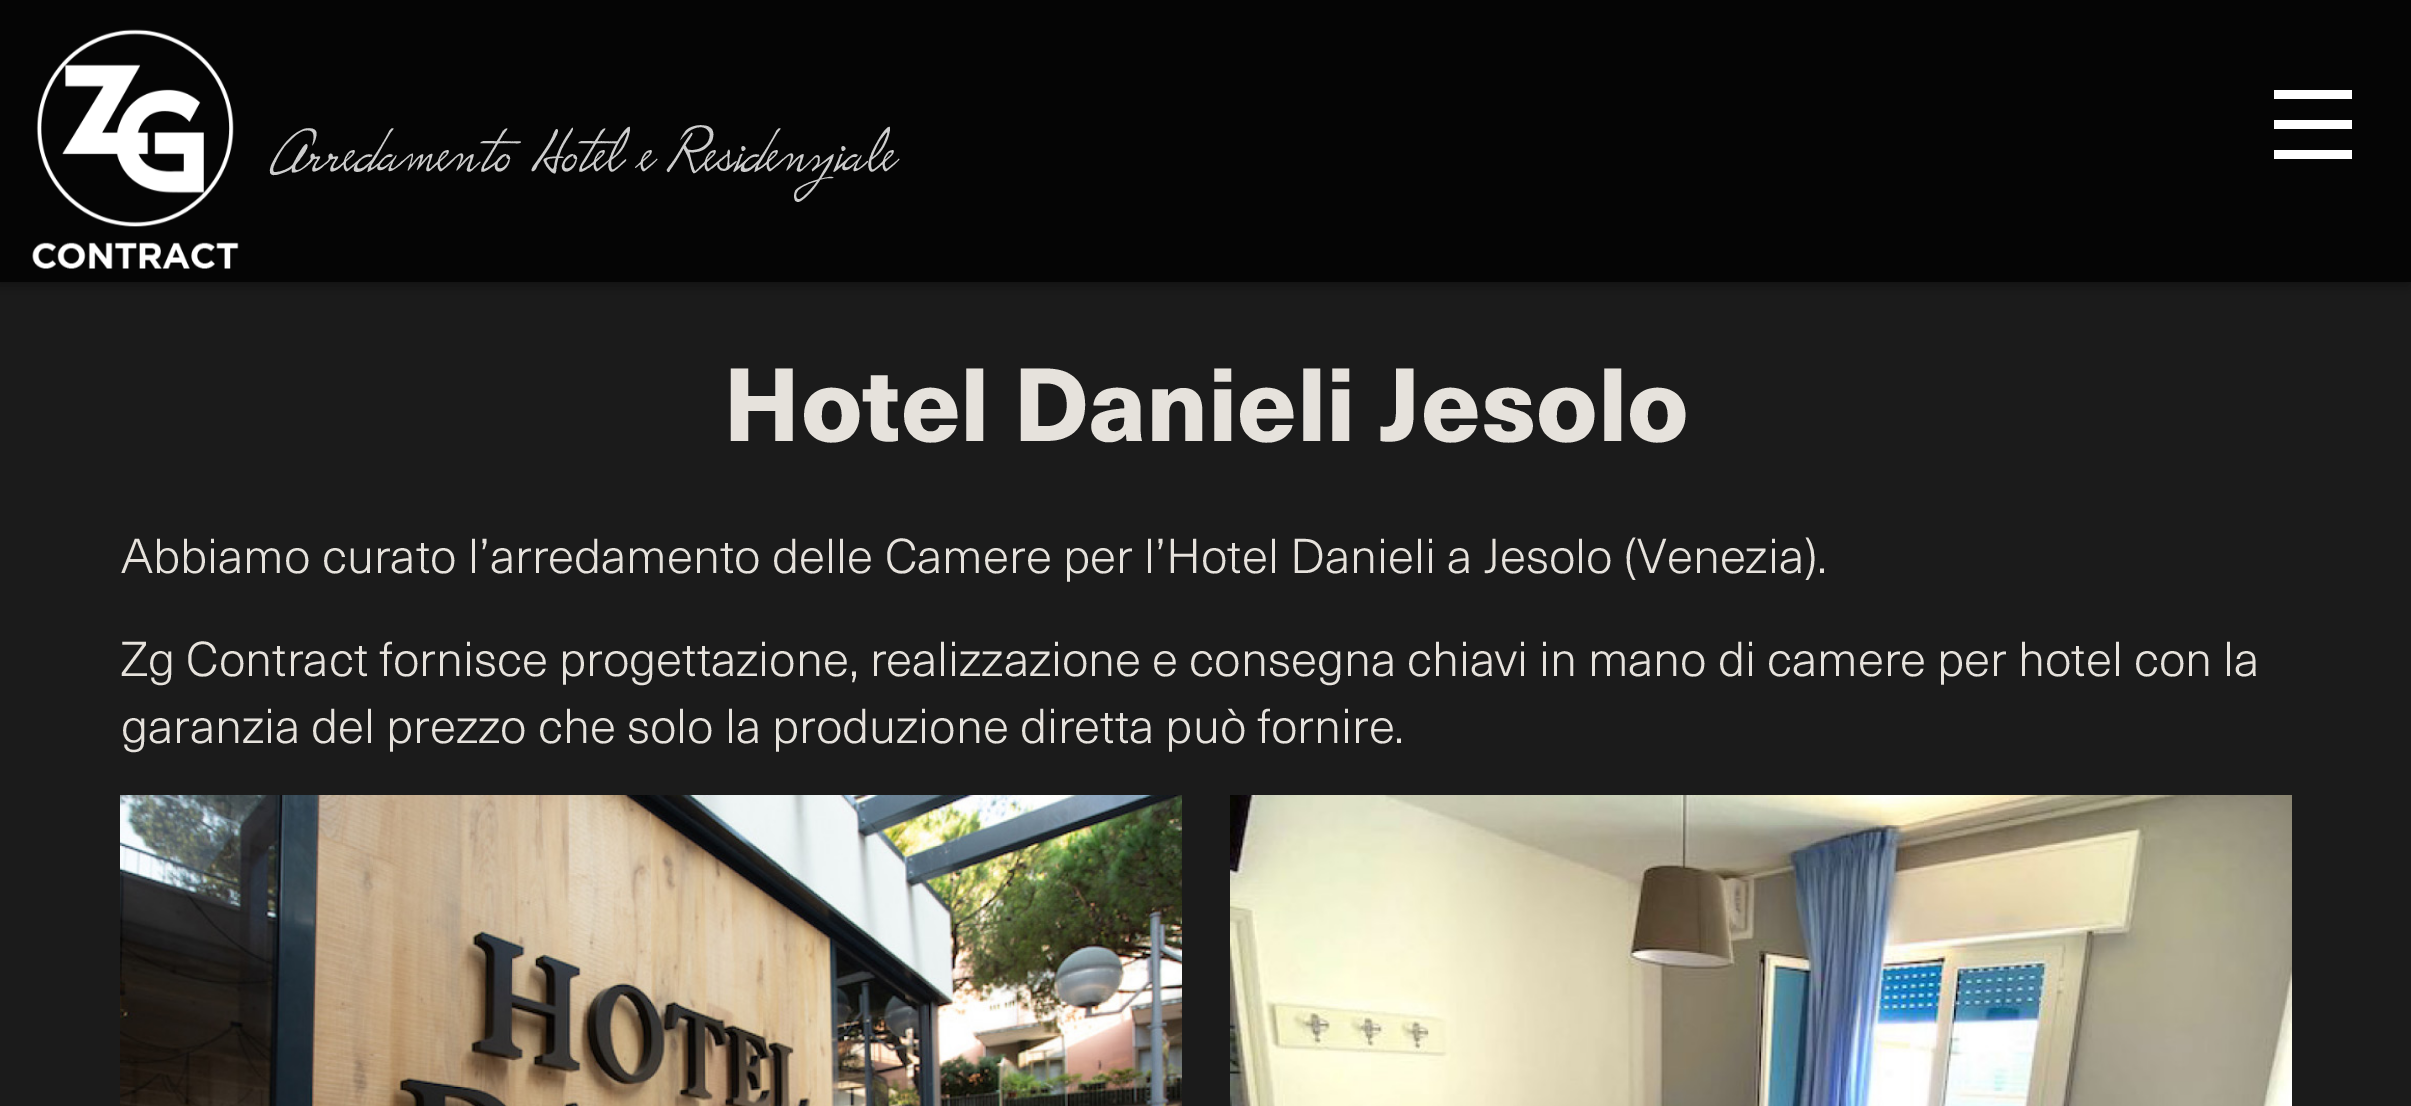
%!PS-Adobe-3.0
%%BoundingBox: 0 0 2411 1106
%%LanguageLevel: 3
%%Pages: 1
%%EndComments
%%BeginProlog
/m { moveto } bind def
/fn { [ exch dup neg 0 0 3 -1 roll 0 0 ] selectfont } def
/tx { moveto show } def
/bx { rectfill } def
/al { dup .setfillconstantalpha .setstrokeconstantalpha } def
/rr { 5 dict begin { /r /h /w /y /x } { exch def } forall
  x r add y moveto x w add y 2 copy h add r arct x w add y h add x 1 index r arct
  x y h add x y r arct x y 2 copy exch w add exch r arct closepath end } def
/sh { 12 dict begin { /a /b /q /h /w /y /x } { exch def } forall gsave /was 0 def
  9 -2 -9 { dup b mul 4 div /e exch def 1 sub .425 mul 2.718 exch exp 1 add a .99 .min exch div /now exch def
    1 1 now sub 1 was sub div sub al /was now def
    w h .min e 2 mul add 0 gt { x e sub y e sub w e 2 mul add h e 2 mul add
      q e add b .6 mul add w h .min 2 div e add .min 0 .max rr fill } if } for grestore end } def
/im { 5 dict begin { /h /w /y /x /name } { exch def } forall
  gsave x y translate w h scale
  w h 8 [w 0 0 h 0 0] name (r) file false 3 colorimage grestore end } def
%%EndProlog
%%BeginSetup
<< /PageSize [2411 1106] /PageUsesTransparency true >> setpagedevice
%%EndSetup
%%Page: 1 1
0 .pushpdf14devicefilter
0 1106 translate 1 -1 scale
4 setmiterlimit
0.106 setgray
0 0 2411 1106 bx
0 setgray
-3 3 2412 282 0 7.5 0.43 sh
0.02 setgray
0 0 2411 282 bx
(image0.raw) 32 29 207 240 im
/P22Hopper-Regular 78 fn
0.804 setgray
(Arredamento Hotel e Residenziale) 270 171 tx
1 setgray
2274 120 78 9 bx
2274 90 78 9 bx
2274 150 78 9 bx
/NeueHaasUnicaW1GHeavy-Black 102 fn
0.902 0.886 0.863 setrgbcolor
(Hotel Danieli Jesolo) 723 441 tx
/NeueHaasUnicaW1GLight-Light 48 fn
121 573 m 0.4 0 32 (Abbiamo curato l’arredamento delle Camere per l’Hotel Danieli a Jesolo \(Venezia\).) widthshow
(Zg Contract fornisce progettazione, realizzazione e consegna chiavi in mano di camere per hotel con la) 121 676 tx
(garanzia del prezzo che solo la produzione diretta può fornire.) 121 743 tx
(image1.raw) 120 795 1062 311 im
(image2.raw) 1230 795 1062 311 im
.poppdf14devicefilter showpage
%%EOF
